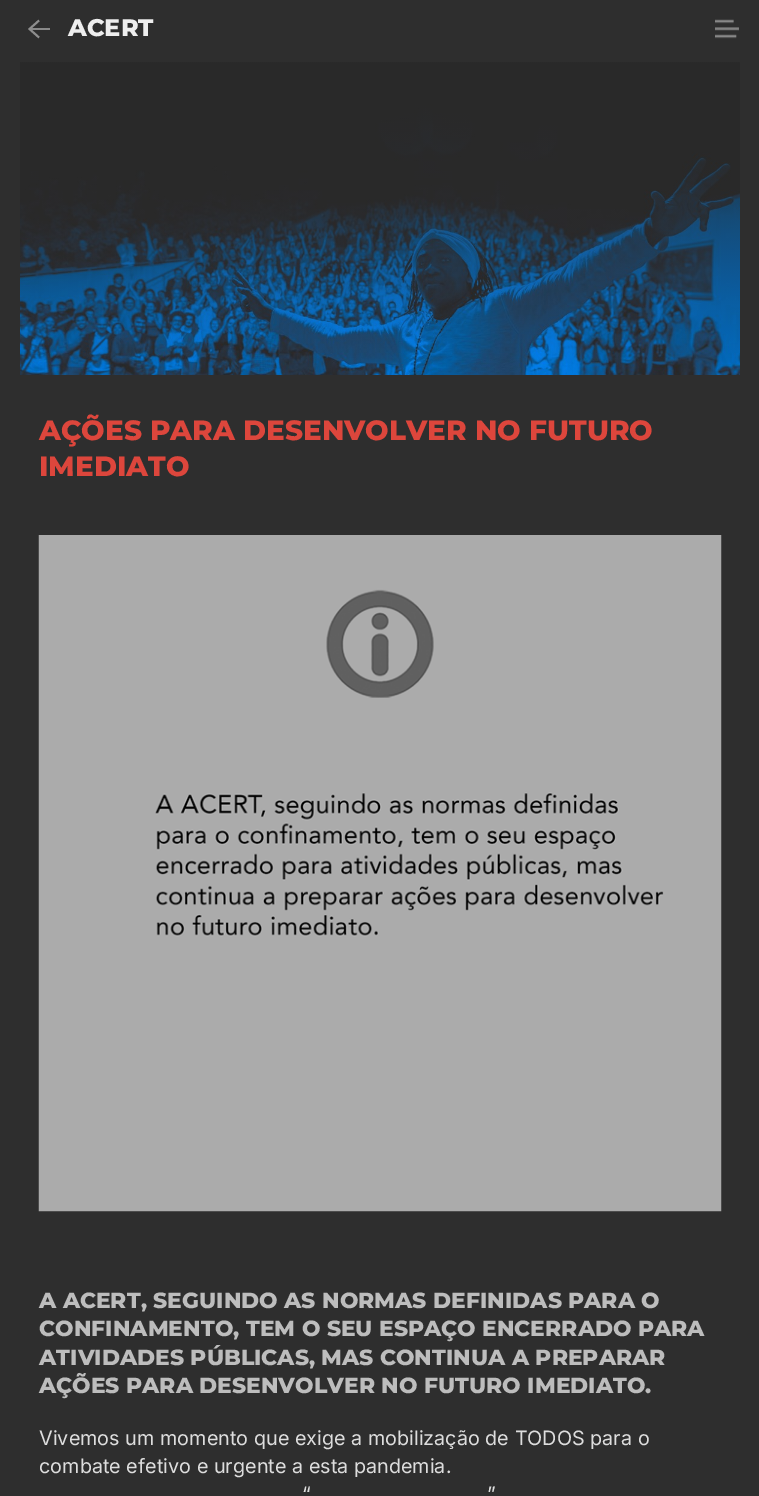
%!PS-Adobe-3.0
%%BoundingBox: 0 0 759 1496
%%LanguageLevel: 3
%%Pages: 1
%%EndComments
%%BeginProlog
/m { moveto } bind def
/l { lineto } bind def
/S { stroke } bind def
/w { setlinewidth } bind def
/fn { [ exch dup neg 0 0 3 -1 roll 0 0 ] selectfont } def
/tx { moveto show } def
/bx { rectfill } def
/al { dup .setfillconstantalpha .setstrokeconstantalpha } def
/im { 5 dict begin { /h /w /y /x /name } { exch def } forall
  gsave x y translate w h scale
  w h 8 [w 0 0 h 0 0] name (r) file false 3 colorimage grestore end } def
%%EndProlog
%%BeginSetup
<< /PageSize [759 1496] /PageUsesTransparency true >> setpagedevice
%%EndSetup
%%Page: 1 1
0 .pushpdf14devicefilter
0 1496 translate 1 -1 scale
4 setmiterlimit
0.18 setgray
0 0 759 1496 bx
0.557 setgray
1.9 w
39 37.5 m 29.5 29 l 39 20.5 l S
0.95 al
30 28 20 2 bx
/Montserrat-ExtraBold 24 fn
1 al
0.933 setgray
(ACERT) 68 36 tx
(image0.raw) 715 19 24 20 im
(image1.raw) 20 62 720 313 im
/Montserrat-ExtraBold 27.9 fn
0.867 0.275 0.235 setrgbcolor
(AÇÕES PARA DESENVOLVER NO FUTURO) 39 440 tx
(IMEDIATO) 39 476 tx
(image2.raw) 38 535 684 677 im
/Montserrat-ExtraBold 21.9 fn
0.741 setgray
(A ACERT, SEGUINDO AS NORMAS DEFINIDAS PARA O) 39 1308 tx
(CONFINAMENTO, TEM O SEU ESPAÇO ENCERRADO PARA) 39 1336 tx
(ATIVIDADES PÚBLICAS, MAS CONTINUA A PREPARAR) 39 1365 tx
(AÇÕES PARA DESENVOLVER NO FUTURO IMEDIATO.) 39 1393 tx
/Inter-Regular 19.8 fn
0.867 setgray
(Vivemos um momento que exige a mobilização de TODOS para o) 39 1445 tx
(combate efetivo e urgente a esta pandemia.) 39 1473 tx
(“) 302 1501 tx
(”) 487 1501 tx
.poppdf14devicefilter showpage
%%EOF
